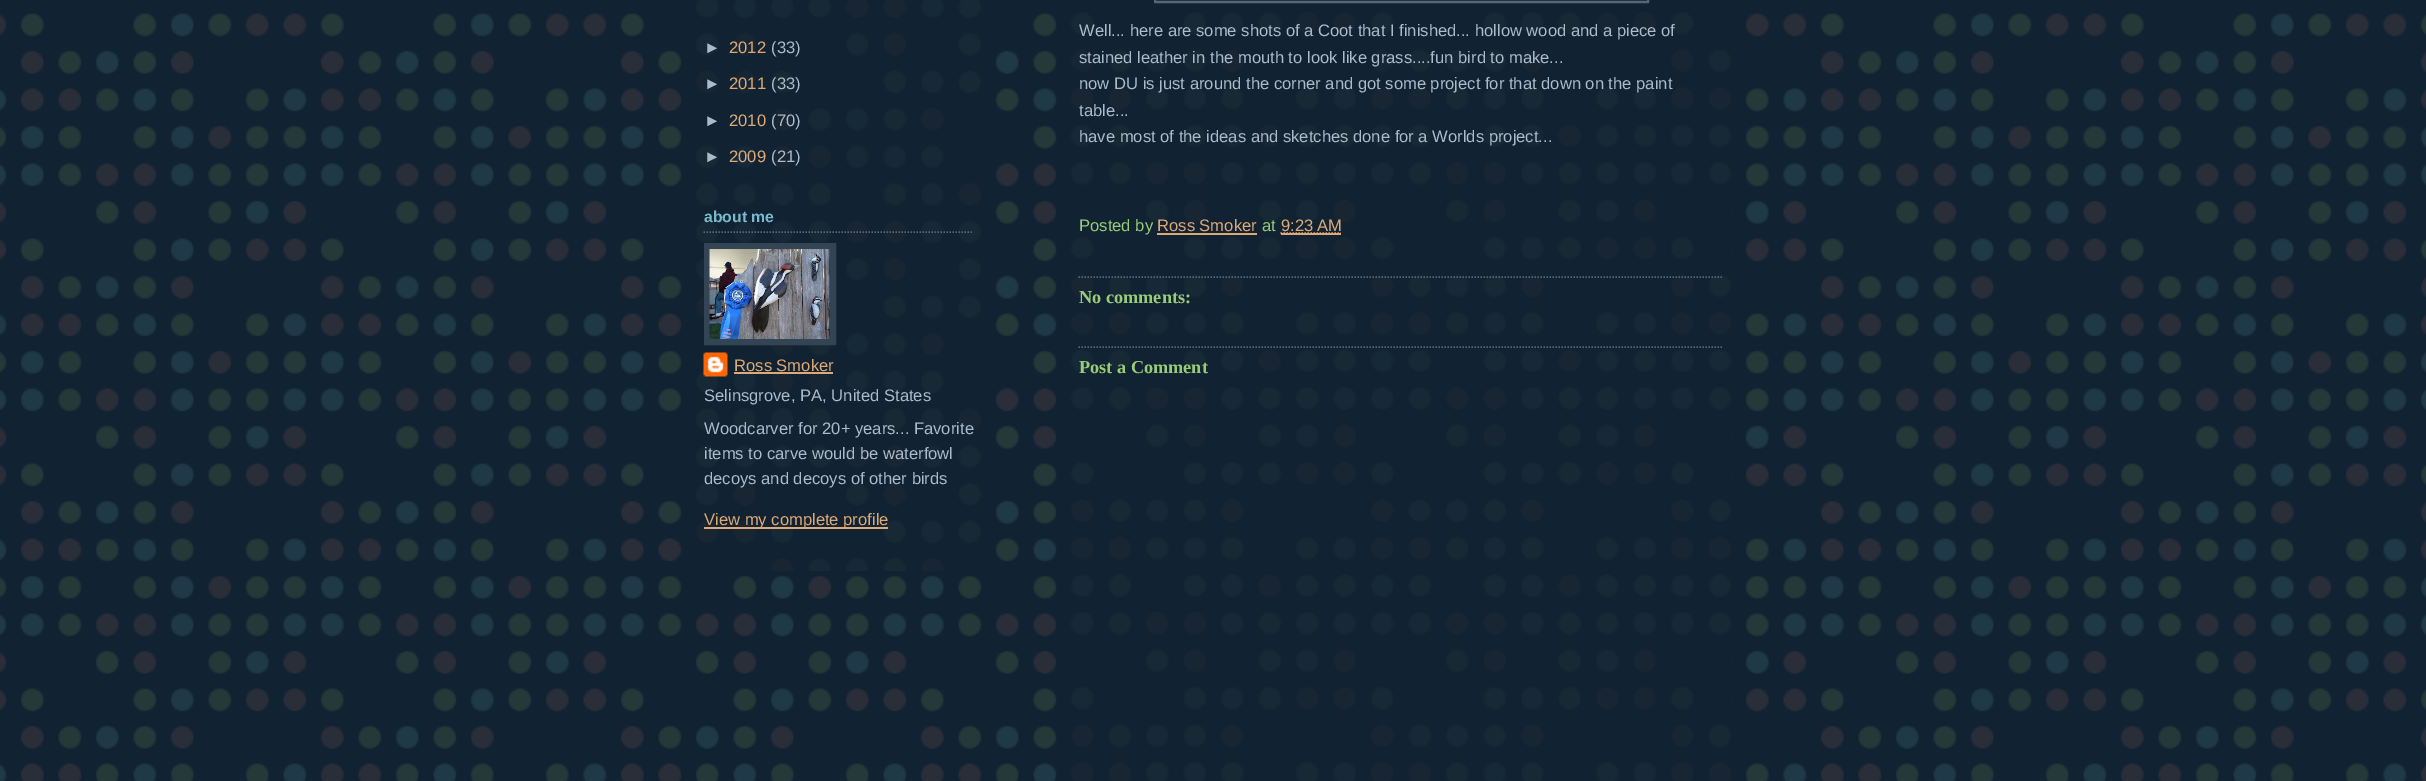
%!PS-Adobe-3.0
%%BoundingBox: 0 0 2426 781
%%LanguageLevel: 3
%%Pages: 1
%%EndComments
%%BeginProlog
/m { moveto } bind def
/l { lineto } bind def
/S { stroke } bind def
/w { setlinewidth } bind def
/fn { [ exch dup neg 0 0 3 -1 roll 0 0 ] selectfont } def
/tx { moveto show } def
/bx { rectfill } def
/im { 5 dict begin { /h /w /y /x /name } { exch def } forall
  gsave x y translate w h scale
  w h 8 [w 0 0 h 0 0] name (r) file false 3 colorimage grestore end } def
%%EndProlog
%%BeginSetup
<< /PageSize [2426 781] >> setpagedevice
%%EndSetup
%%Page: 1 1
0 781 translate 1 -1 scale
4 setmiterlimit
0.067 0.133 0.2 setrgbcolor
0 0 2426 781 bx
(image0.raw) 0 13 2426 768 im
(image1.raw) 696 0 285 571 im
/LiberationSans-Regular 16.6 fn
0.667 0.733 0.8 setrgbcolor
(►) 704 53 tx
0.867 0.667 0.467 setrgbcolor
(2012) 729 53 tx
0.667 0.733 0.8 setrgbcolor
(\(33\)) 771 53 tx
(►) 704 89 tx
0.867 0.667 0.467 setrgbcolor
(2011) 729 89 tx
0.667 0.733 0.8 setrgbcolor
(\(33\)) 771 89 tx
(►) 704 126 tx
0.867 0.667 0.467 setrgbcolor
(2010) 729 126 tx
0.667 0.733 0.8 setrgbcolor
(\(70\)) 771 126 tx
(►) 704 162 tx
0.867 0.667 0.467 setrgbcolor
(2009) 729 162 tx
0.667 0.733 0.8 setrgbcolor
(\(21\)) 771 162 tx
0.333 0.4 0.467 setrgbcolor
1.5 w
[1.5 1.5] 0 setdash
703.5 232 m 973.5 232 l S
/LiberationSans-Bold 15.75 fn
0.467 0.733 0.8 setrgbcolor
(about me) 704 222 tx
0.2 0.267 0.333 setrgbcolor
6 w
[] 0 setdash
707 246 126 96 rectstroke
(image2.raw) 709 249 121 90 im
(image3.raw) 703 352 25 25 im
/LiberationSans-Regular 16.6 fn
0.867 0.667 0.467 setrgbcolor
(Ross Smoker) 734 371 tx
734 372 99 2 bx
0.667 0.733 0.8 setrgbcolor
(Selinsgrove, PA, United States) 704 401 tx
(Woodcarver for 20+ years... Favorite) 704 434 tx
(items to carve would be waterfowl) 704 459 tx
(decoys and decoys of other birds) 704 484 tx
0.867 0.667 0.467 setrgbcolor
704 527 184 2 bx
(View my complete profile) 704 525 tx
(image4.raw) 1071 12 660 769 im
0.333 0.4 0.467 setrgbcolor
2 w
1155 -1 493 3 rectstroke
0.667 0.733 0.8 setrgbcolor
(Well... here are some shots of a Coot that I finished... hollow wood and a piece of) 1079 36 tx
(stained leather in the mouth to look like grass....fun bird to make...) 1079 63 tx
(now DU is just around the corner and got some project for that down on the paint) 1079 89 tx
(table...) 1079 116 tx
(have most of the ideas and sketches done for a Worlds project...) 1079 142 tx
0.6 0.8 0.467 setrgbcolor
(Posted by) 1079 231 tx
0.867 0.667 0.467 setrgbcolor
(Ross Smoker) 1157 231 tx
1157 233 100 2 bx
0.6 0.8 0.467 setrgbcolor
(at) 1262 231 tx
0.867 0.667 0.467 setrgbcolor
(9:23 AM) 1281 231 tx
1.5 w
[1.5 1.5] 0 setdash
1280.5 233 m 1341 233 l S
1281 233 60 2 bx
0.333 0.4 0.467 setrgbcolor
1078.5 277 m 1723.5 277 l S
/LiberationSerif-Bold 18.25 fn
0.6 0.8 0.467 setrgbcolor
(No comments:) 1079 303 tx
0.333 0.4 0.467 setrgbcolor
1078.5 347 m 1723.5 347 l S
0.6 0.8 0.467 setrgbcolor
(Post a Comment) 1079 373 tx
showpage
%%EOF
